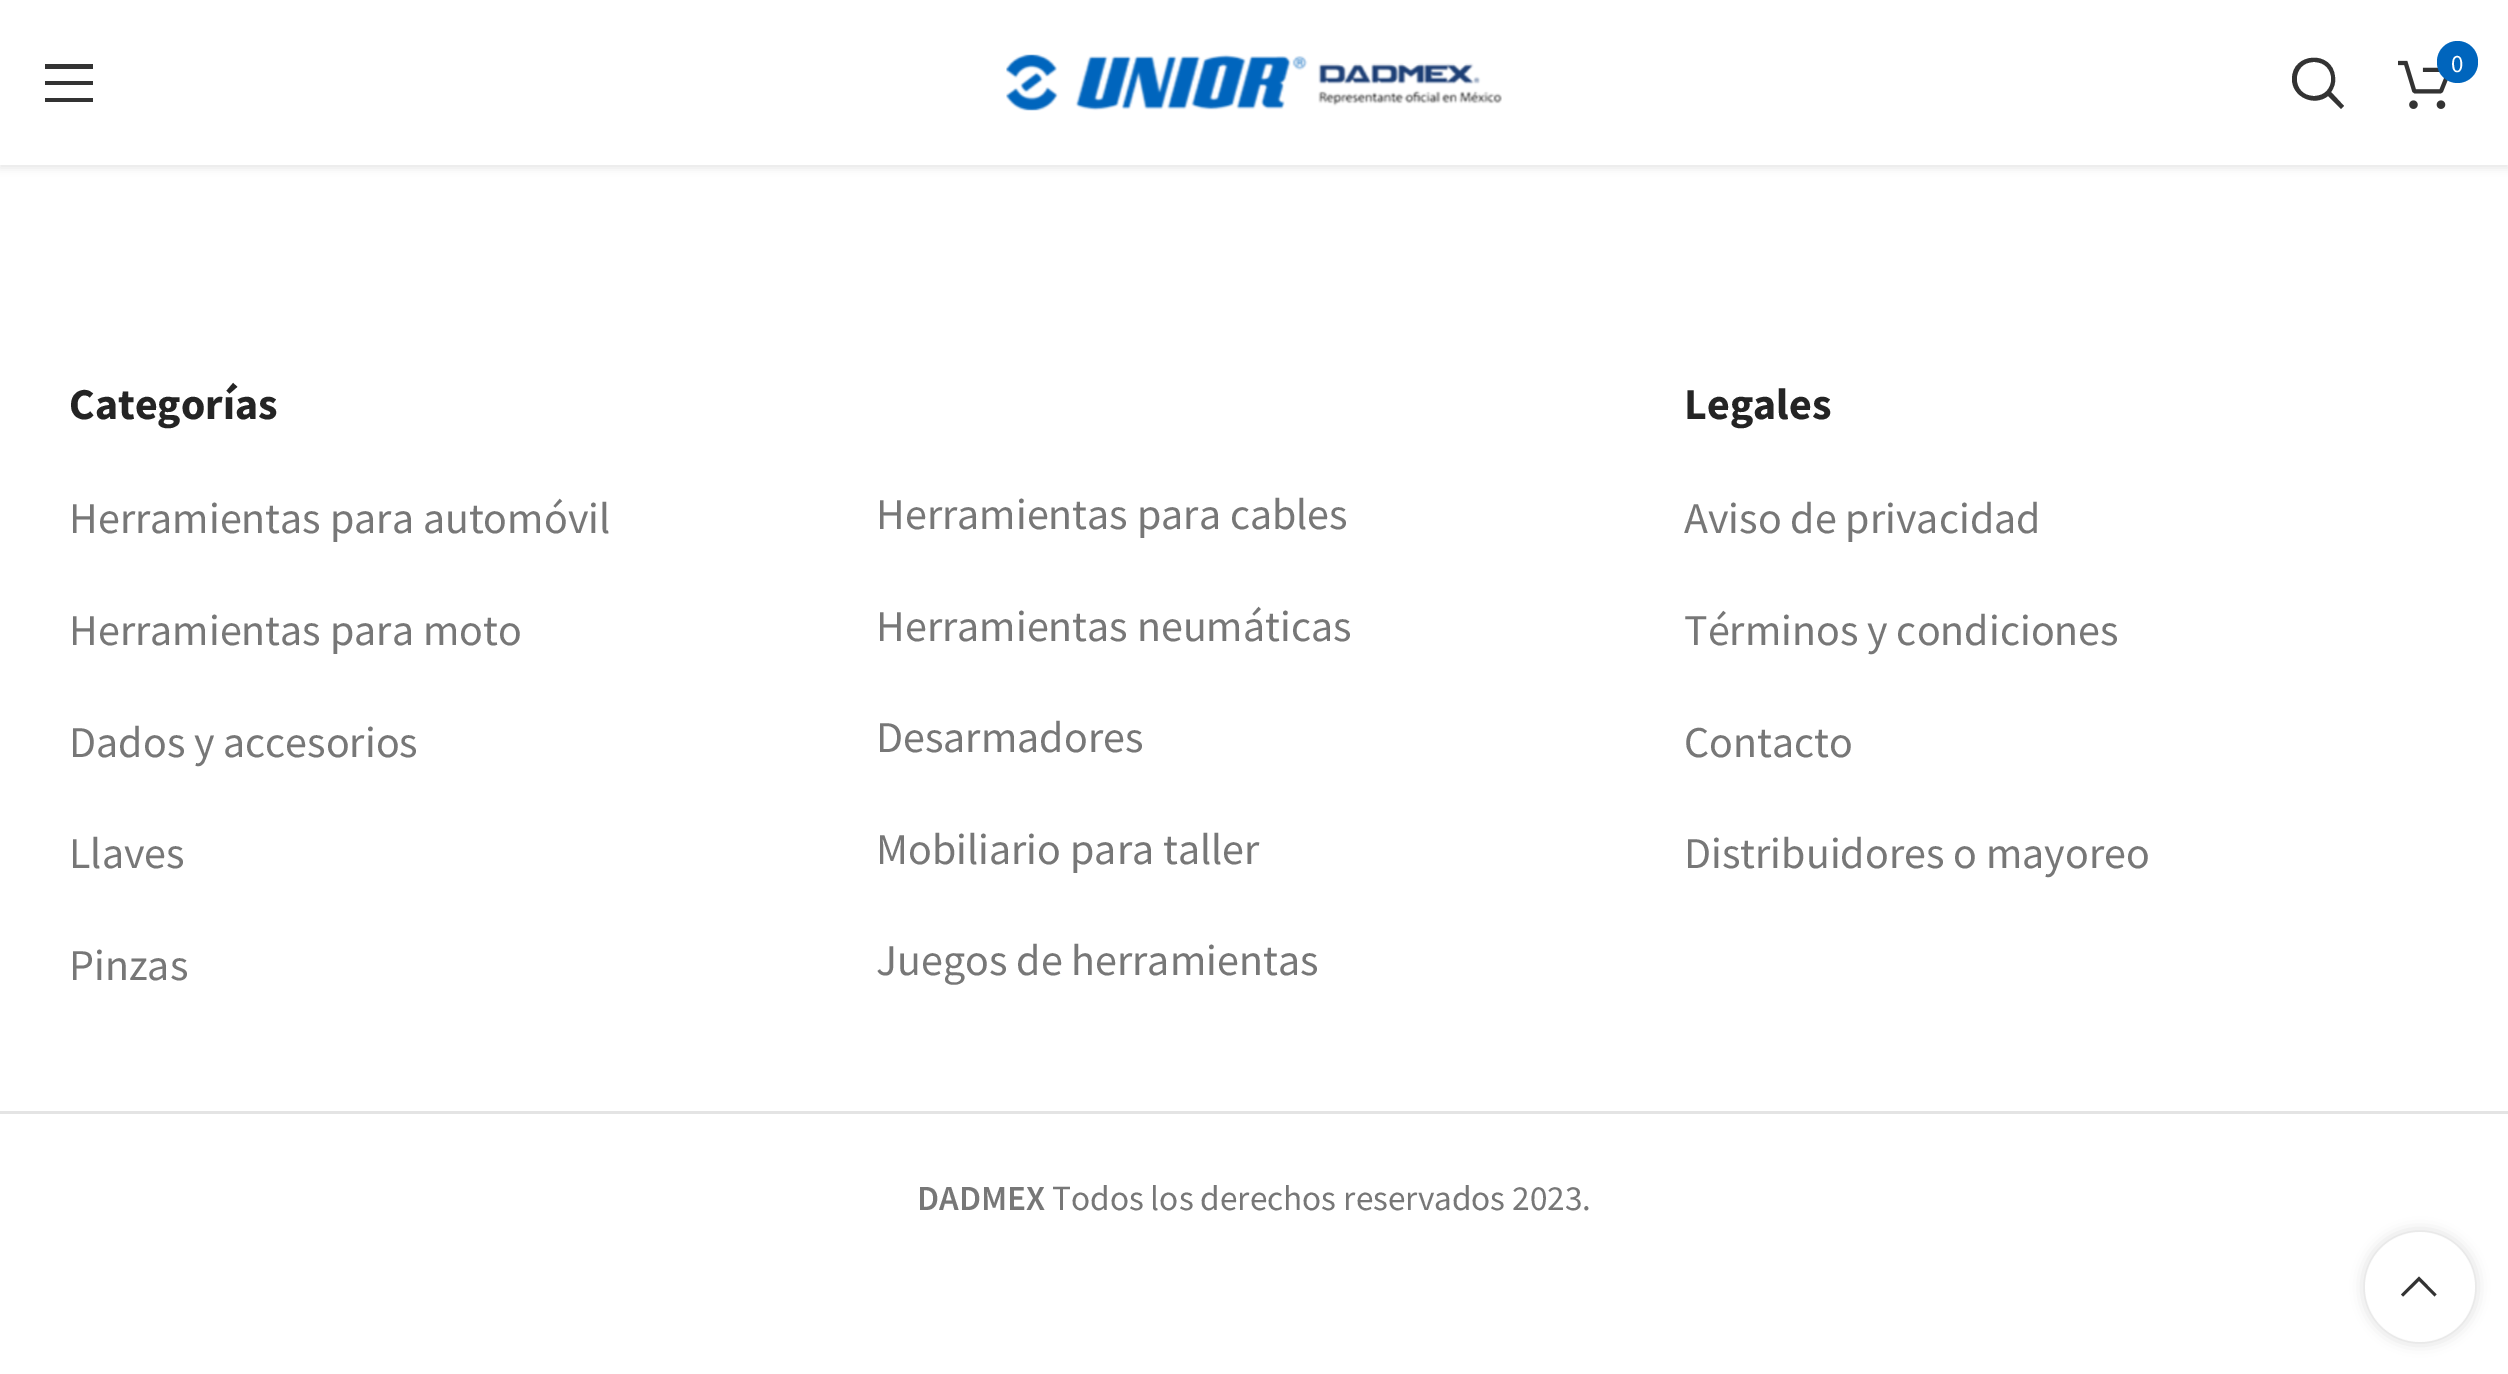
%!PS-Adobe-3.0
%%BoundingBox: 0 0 2508 1374
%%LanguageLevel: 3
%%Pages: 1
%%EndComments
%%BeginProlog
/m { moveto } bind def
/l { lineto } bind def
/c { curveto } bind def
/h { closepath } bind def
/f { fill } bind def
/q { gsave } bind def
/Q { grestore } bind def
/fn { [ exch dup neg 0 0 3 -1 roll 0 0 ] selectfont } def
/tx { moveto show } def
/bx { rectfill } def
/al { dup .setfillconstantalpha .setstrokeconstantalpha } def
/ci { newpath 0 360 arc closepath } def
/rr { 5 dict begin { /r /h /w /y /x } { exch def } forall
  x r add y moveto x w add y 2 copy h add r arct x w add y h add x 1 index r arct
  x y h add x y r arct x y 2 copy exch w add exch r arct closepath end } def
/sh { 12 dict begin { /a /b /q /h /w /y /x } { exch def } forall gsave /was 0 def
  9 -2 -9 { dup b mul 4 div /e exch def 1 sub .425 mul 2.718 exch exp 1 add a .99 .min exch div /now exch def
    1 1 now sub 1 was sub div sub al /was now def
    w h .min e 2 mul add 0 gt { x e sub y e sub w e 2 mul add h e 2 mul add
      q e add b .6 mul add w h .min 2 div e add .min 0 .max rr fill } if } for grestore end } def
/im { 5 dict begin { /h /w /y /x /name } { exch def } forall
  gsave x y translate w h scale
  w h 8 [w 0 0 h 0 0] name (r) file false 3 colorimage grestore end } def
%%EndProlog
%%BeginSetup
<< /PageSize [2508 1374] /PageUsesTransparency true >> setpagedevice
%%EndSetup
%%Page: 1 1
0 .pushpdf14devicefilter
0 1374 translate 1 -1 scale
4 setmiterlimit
1 setgray
0 0 2508 1374 bx
0 setgray
0 3 2508 165 0 4 0.1 sh
1 setgray
0 0 2508 165 bx
0.2 setgray
45 69 m 93 69 l 93 64 l 45 64 l h 45 85 m 93 85 l 93 81 l 45 81 l h 45 102 m 93 102 l 93 98 l 45 98 l h f
(image0.raw) 1006 54 496 57 im
2292 79 m 2292 97 2314 107 2328 96 c 2341 109 l 2344 106 l 2331 92 l 2334 88 2336 82 2335 77 c 2333 50 2292 52 2292 79 c h 2314 96 m 2291 96 2291 62 2314 62 c 2337 62 2337 96 2314 96 c h f
(image1.raw) 2398 60 50 49 im
0 0.396 0.741 setrgbcolor
2437 41 41 42 20.5 rr f
/SourceSansPro-Regular 25 fn
1 setgray
(0) 2451 72 tx
/SourceSansPro-Bold 44 fn
0.141 setgray
(Categorías) 69 419 tx
/SourceSansPro-Regular 44 fn
0.467 setgray
(Herramientas para automóvil) 69 533 tx
(Herramientas para moto) 69 645 tx
(Dados y accesorios) 69 757 tx
(Llaves) 69 868 tx
(Pinzas) 69 980 tx
(Herramientas para cables) 876 529 tx
(Herramientas neumáticas) 876 641 tx
(Desarmadores) 876 752 tx
(Mobiliario para taller) 876 864 tx
(Juegos de herramientas) 876 975 tx
/SourceSansPro-Bold 44 fn
0.141 setgray
(Legales) 1684 419 tx
/SourceSansPro-Regular 44 fn
0.467 setgray
(Aviso de privacidad) 1684 533 tx
(Términos y condiciones) 1684 645 tx
(Contacto) 1684 757 tx
(Distribuidores o mayoreo) 1684 868 tx
0.894 setgray
0 1111 2508 3 bx
/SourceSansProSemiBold-SemiBold 35.25 fn
0.467 setgray
(DADMEX) 917 1210 tx
/SourceSansPro-Regular 35.25 fn
(Todos los derechos reservados 2023.) 1052 1210 tx
q
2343 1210 m 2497 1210 l 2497 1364 l 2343 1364 l h 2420 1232 m 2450.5 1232 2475 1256.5 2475 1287 c 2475 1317.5 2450.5 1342 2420 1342 c 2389.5 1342 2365 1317.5 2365 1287 c 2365 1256.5 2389.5 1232 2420 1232 c h eoclip newpath
0 setgray
2365 1232 110 110 55 7 0.17 sh
Q
0.9 al
1 setgray
2420 1287 55 ci f
1 al
0.2 setgray
2434.5 1296.5 m 2436.5 1294.5 l 2419 1276.5 l 2401 1294.5 l 2403 1296.5 l 2419 1281 l h f
.poppdf14devicefilter showpage
%%EOF
